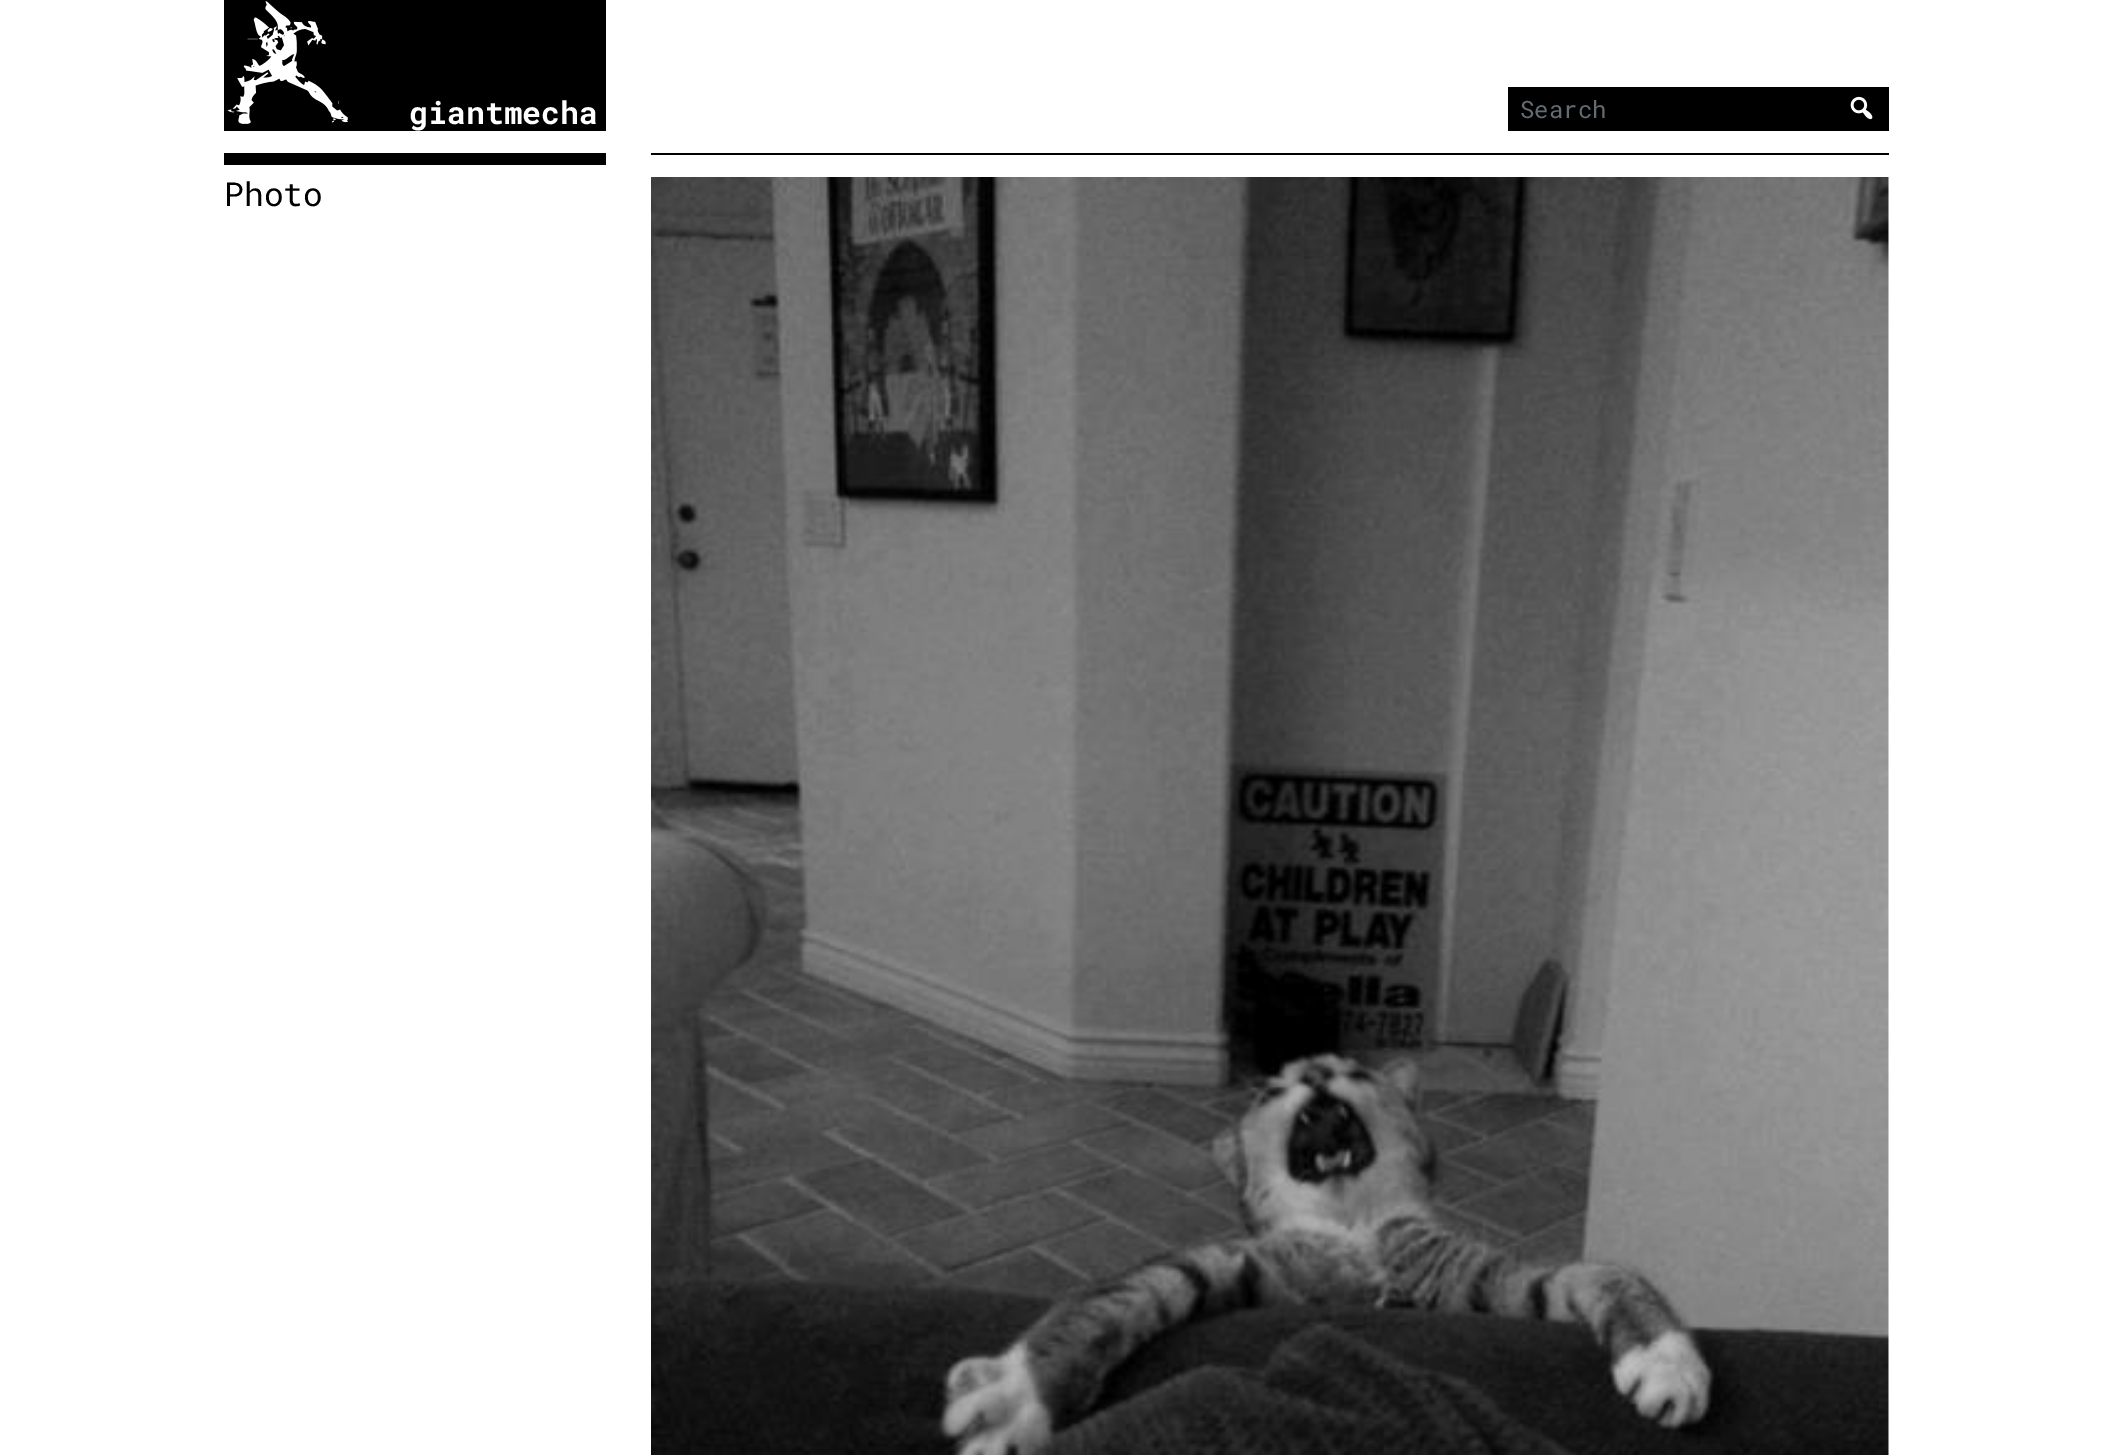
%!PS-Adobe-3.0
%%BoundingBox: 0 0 2112 1455
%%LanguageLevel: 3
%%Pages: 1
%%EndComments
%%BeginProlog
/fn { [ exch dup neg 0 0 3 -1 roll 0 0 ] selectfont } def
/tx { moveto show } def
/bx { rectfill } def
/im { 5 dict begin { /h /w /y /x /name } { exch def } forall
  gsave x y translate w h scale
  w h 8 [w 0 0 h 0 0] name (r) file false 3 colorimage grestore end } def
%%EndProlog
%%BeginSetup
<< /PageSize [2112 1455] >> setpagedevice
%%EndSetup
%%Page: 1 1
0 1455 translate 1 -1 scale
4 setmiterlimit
1 setgray
0 0 2112 1455 bx
0 setgray
224 0 382 131 bx
(image0.raw) 227 1 121 123 im
/RobotoMono-Bold 31.5 fn
1 setgray
(giantmecha) 409 124 tx
0 setgray
1508 87 381 44 bx
/RobotoMono-Regular 24 fn
0.388 0.424 0.447 setrgbcolor
(Search) 1520 118 tx
(image1.raw) 1850 96 23 24 im
0 setgray
224 153 382 12 bx
/RobotoMono-Regular 33 fn
(Photo) 224 206 tx
651 153 1238 2 bx
(image2.raw) 651 177 1238 1278 im
showpage
%%EOF
